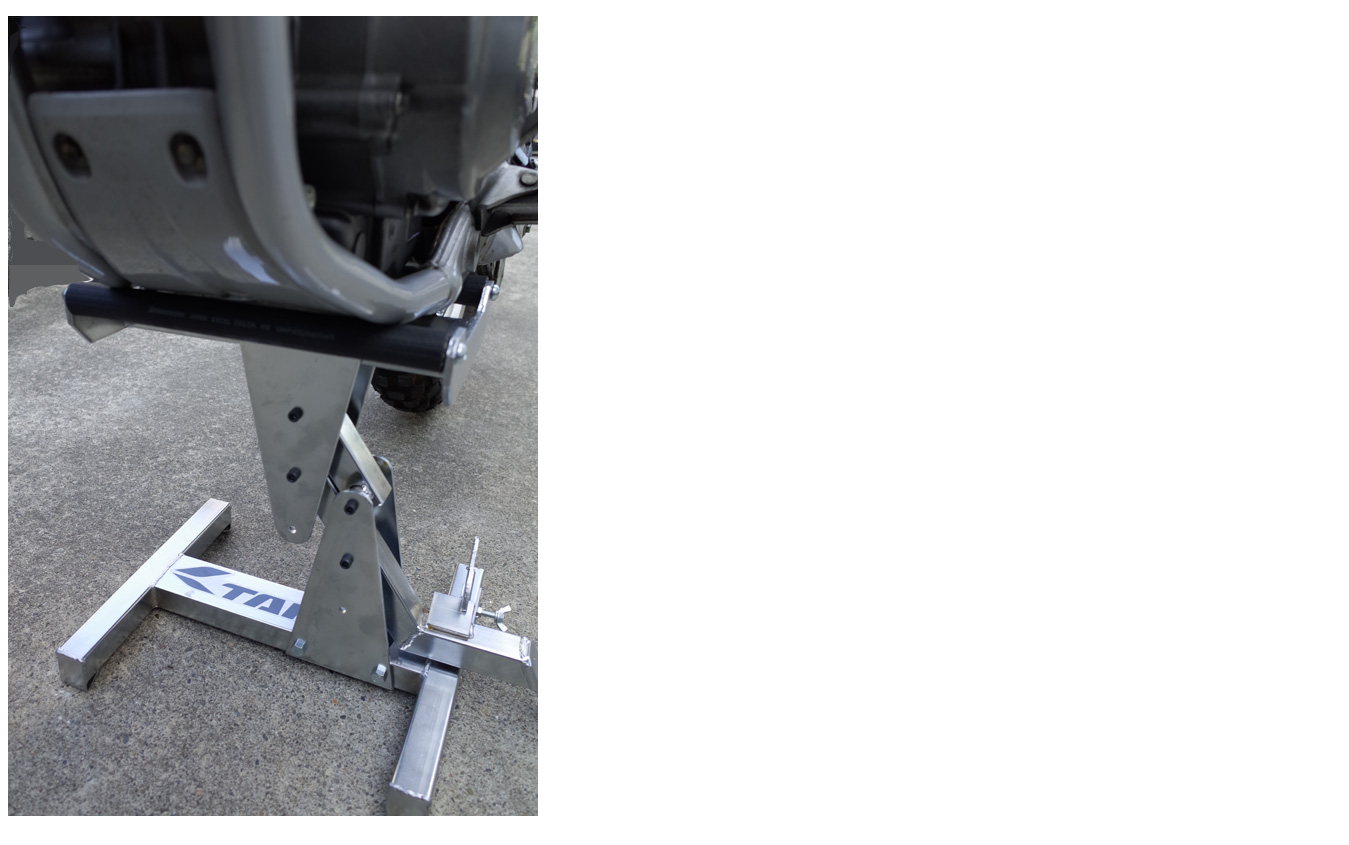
%!PS-Adobe-3.0
%%BoundingBox: 0 0 1349 845
%%LanguageLevel: 3
%%Pages: 1
%%EndComments
%%BeginProlog
/bx { rectfill } def
/im { 5 dict begin { /h /w /y /x /name } { exch def } forall
  gsave x y translate w h scale
  w h 8 [w 0 0 h 0 0] name (r) file false 3 colorimage grestore end } def
%%EndProlog
%%BeginSetup
<< /PageSize [1349 845] >> setpagedevice
%%EndSetup
%%Page: 1 1
0 845 translate 1 -1 scale
4 setmiterlimit
1 setgray
0 0 1349 845 bx
(image0.raw) 8 16 530 800 im
showpage
%%EOF
